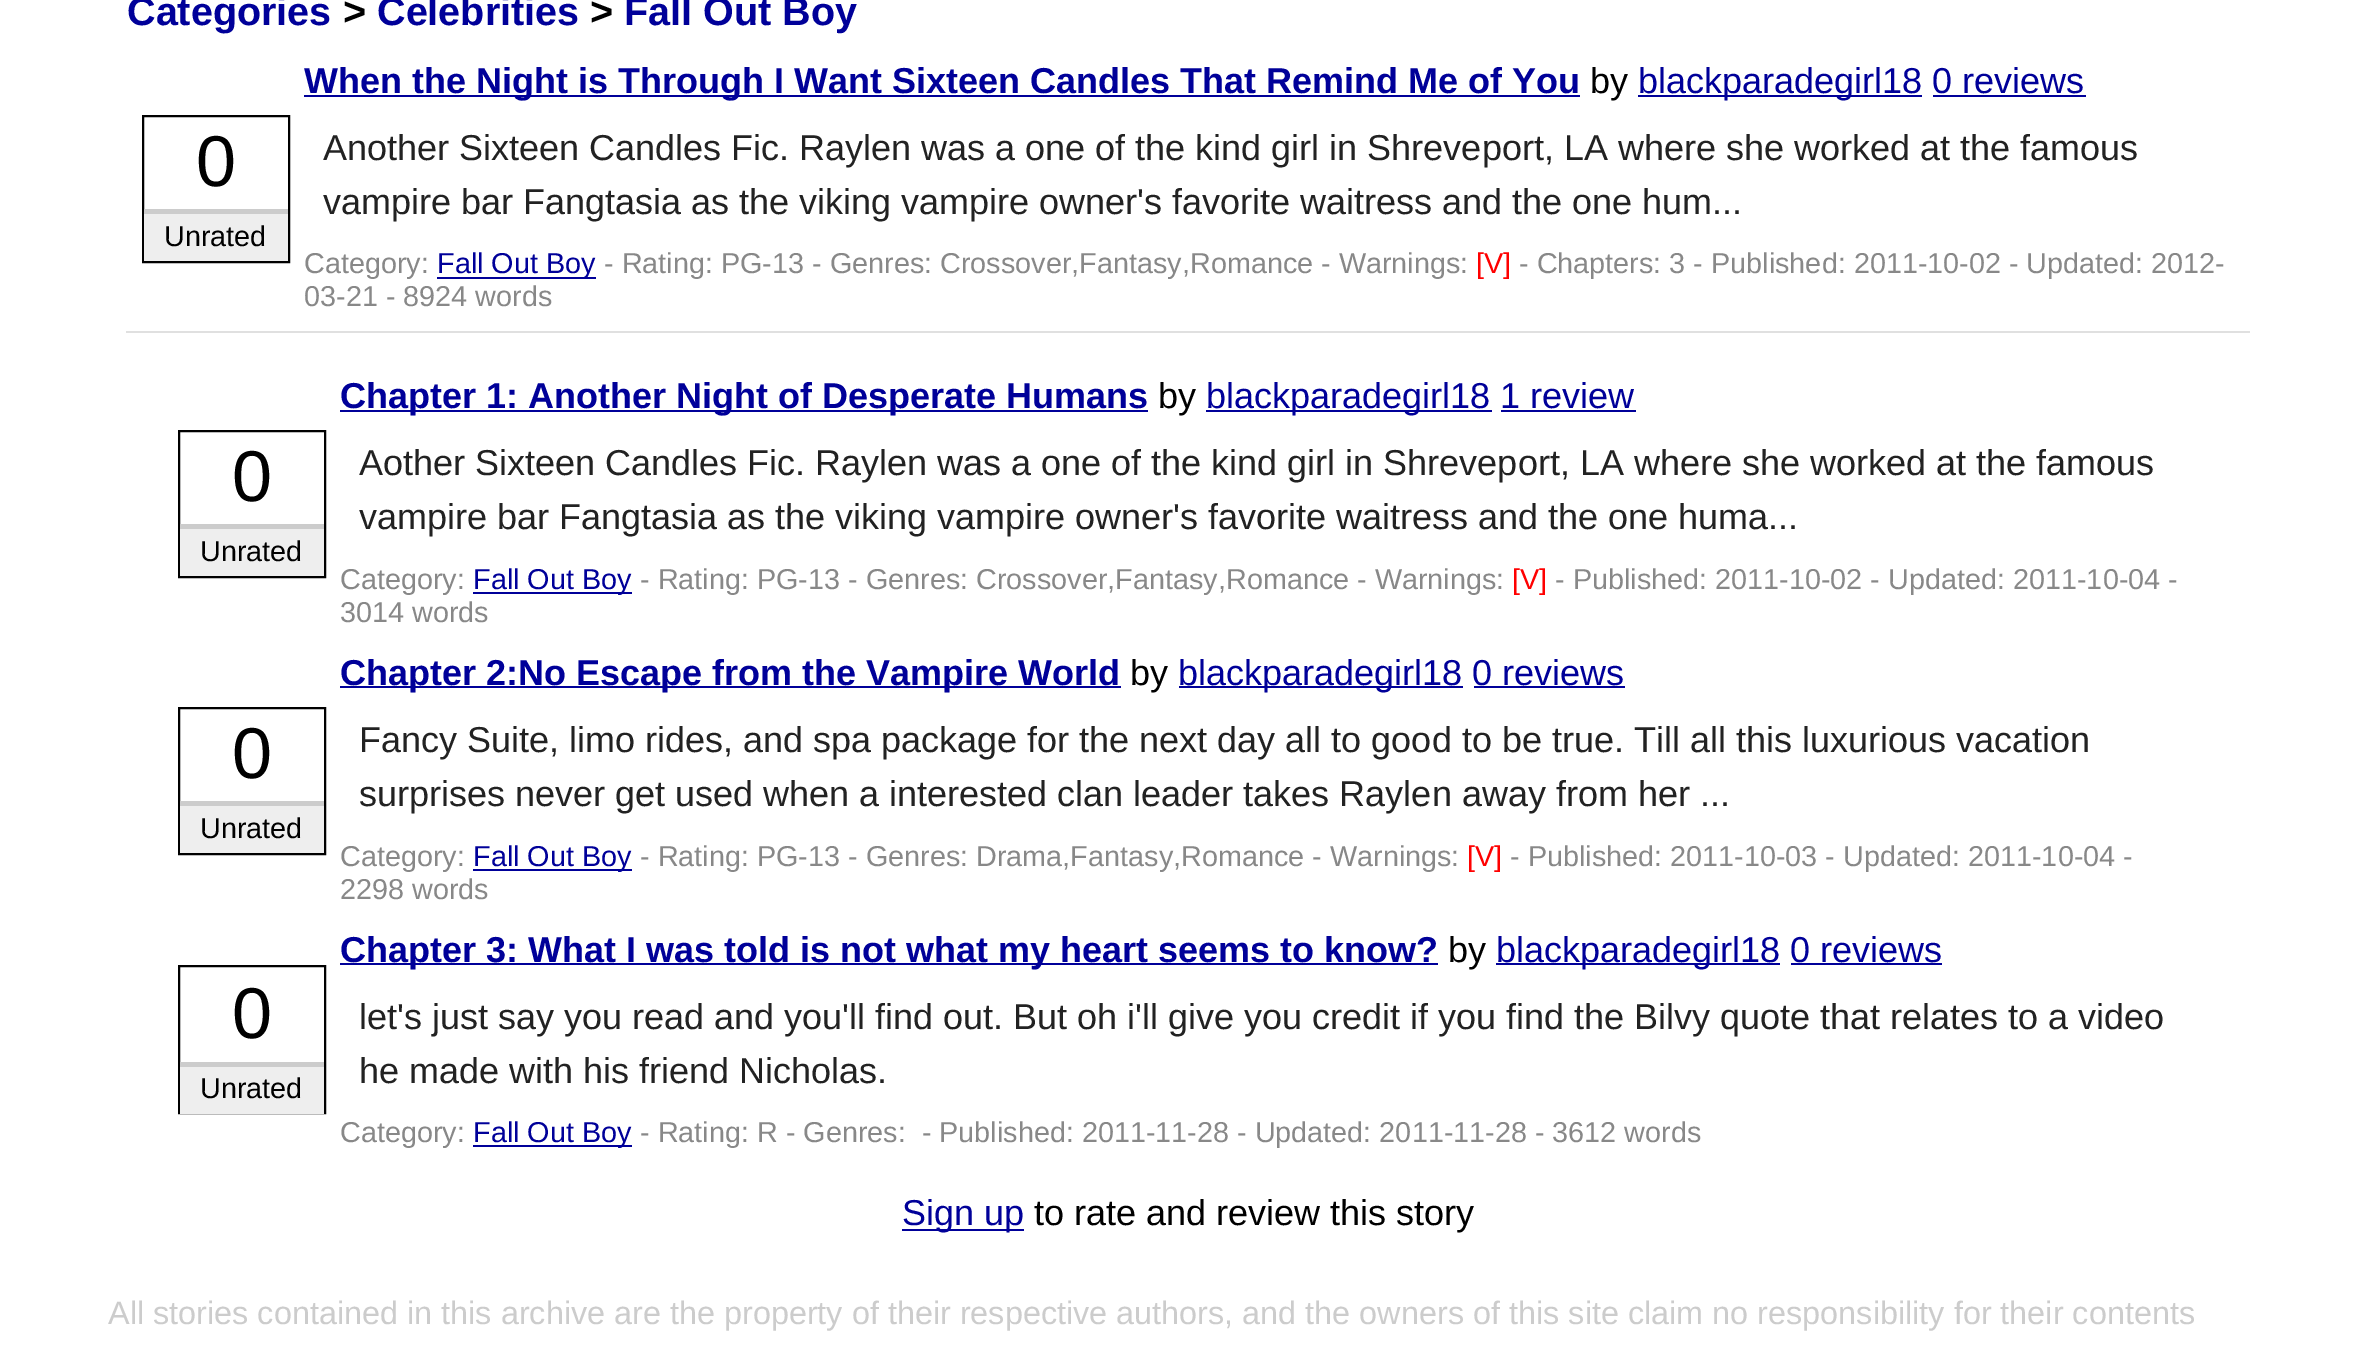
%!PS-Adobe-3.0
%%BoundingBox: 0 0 2374 1360
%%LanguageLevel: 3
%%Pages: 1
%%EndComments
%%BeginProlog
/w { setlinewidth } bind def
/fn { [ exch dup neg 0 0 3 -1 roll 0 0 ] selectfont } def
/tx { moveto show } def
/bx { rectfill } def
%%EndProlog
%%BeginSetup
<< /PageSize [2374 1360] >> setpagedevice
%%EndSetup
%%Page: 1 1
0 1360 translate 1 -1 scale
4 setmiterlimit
1 setgray
0 0 2374 1360 bx
/LiberationSans-Bold 39.5 fn
0 0 0.6 setrgbcolor
(Categories) 127 25 tx
0 setgray
(>) 343 25 tx
0 0 0.6 setrgbcolor
(Celebrities) 377 25 tx
0 setgray
(>) 590 25 tx
0 0 0.6 setrgbcolor
(Fall Out Boy) 624 25 tx
0.878 setgray
126 331 2124 2 bx
0 0 0.6 setrgbcolor
304 95 1276 2 bx
/LiberationSans-Bold 36 fn
(When the Night is Through I Want Sixteen Candles That Remind Me of You) 304 93 tx
/LiberationSans-Regular 36 fn
0 setgray
(by) 1590 93 tx
0 0 0.6 setrgbcolor
1638 95 284 2 bx
(blackparadegirl18 0 reviews) 1638 93 tx
1933 95 153 2 bx
0 setgray
2 w
143 116 146 146 rectstroke
/LiberationSans-Regular 72 fn
(0) 196 186 tx
0.933 setgray
144 214 144 47 bx
0.8 setgray
144 209 144 5 bx
/LiberationSans-Regular 28.8 fn
0 setgray
(Unrated) 164 246 tx
/LiberationSans-Regular 36 fn
0.133 setgray
(Another Sixteen Candles Fic. Raylen was a one of the kind girl in Shreveport, LA where she worked at the famous) 323 160 tx
(vampire bar Fangtasia as the viking vampire owner's favorite waitress and the one hum...) 323 214 tx
/LiberationSans-Regular 28.8 fn
0.533 setgray
(Category:) 304 273 tx
0 0 0.6 setrgbcolor
437 277 159 2 bx
(Fall Out Boy) 437 273 tx
0.533 setgray
(- Rating: PG-13 - Genres: Crossover,Fantasy,Romance - Warnings:) 604 273 tx
1 0 0 setrgbcolor
([V]) 1476 273 tx
0.533 setgray
(- Chapters: 3 - Published: 2011-10-02 - Updated: 2012-) 1519 273 tx
(03-21 - 8924 words) 304 306 tx
0 0 0.6 setrgbcolor
340 410 808 2 bx
/LiberationSans-Bold 36 fn
(Chapter 1: Another Night of Desperate Humans) 340 408 tx
/LiberationSans-Regular 36 fn
0 setgray
(by) 1158 408 tx
0 0 0.6 setrgbcolor
1206 410 286 2 bx
(blackparadegirl18 1 review) 1206 408 tx
1501 410 135 2 bx
0 setgray
179 431 146 146 rectstroke
/LiberationSans-Regular 72 fn
(0) 232 501 tx
0.933 setgray
180 529 144 47 bx
0.8 setgray
180 524 144 5 bx
/LiberationSans-Regular 28.8 fn
0 setgray
(Unrated) 200 561 tx
/LiberationSans-Regular 36 fn
0.133 setgray
(Aother Sixteen Candles Fic. Raylen was a one of the kind girl in Shreveport, LA where she worked at the famous) 359 475 tx
(vampire bar Fangtasia as the viking vampire owner's favorite waitress and the one huma...) 359 529 tx
/LiberationSans-Regular 28.8 fn
0.533 setgray
(Category:) 340 589 tx
0 0 0.6 setrgbcolor
473 592 159 2 bx
(Fall Out Boy) 473 589 tx
0.533 setgray
(- Rating: PG-13 - Genres: Crossover,Fantasy,Romance - Warnings:) 640 589 tx
1 0 0 setrgbcolor
([V]) 1512 589 tx
0.533 setgray
(- Published: 2011-10-02 - Updated: 2011-10-04 -) 1555 589 tx
(3014 words) 340 622 tx
0 0 0.6 setrgbcolor
340 686 781 2 bx
/LiberationSans-Bold 36 fn
(Chapter 2:No Escape from the Vampire World) 340 685 tx
/LiberationSans-Regular 36 fn
0 setgray
(by) 1130 685 tx
0 0 0.6 setrgbcolor
1179 686 284 2 bx
(blackparadegirl18 0 reviews) 1178 685 tx
1474 686 151 2 bx
0 setgray
179 708 146 146 rectstroke
/LiberationSans-Regular 72 fn
(0) 232 778 tx
0.933 setgray
180 806 144 47 bx
0.8 setgray
180 801 144 5 bx
/LiberationSans-Regular 28.8 fn
0 setgray
(Unrated) 200 838 tx
/LiberationSans-Regular 36 fn
0.133 setgray
(Fancy Suite, limo rides, and spa package for the next day all to good to be true. Till all this luxurious vacation) 359 752 tx
(surprises never get used when a interested clan leader takes Raylen away from her ...) 359 806 tx
/LiberationSans-Regular 28.8 fn
0.533 setgray
(Category:) 340 866 tx
0 0 0.6 setrgbcolor
473 869 159 2 bx
(Fall Out Boy) 473 866 tx
0.533 setgray
(- Rating: PG-13 - Genres: Drama,Fantasy,Romance - Warnings:) 640 866 tx
1 0 0 setrgbcolor
([V]) 1467 866 tx
0.533 setgray
(- Published: 2011-10-03 - Updated: 2011-10-04 -) 1510 866 tx
(2298 words) 340 899 tx
0 0 0.6 setrgbcolor
340 963 1098 2 bx
/LiberationSans-Bold 36 fn
(Chapter 3: What I was told is not what my heart seems to know?) 340 962 tx
/LiberationSans-Regular 36 fn
0 setgray
(by) 1448 962 tx
0 0 0.6 setrgbcolor
1496 963 284 2 bx
(blackparadegirl18 0 reviews) 1496 962 tx
1791 963 151 2 bx
0 setgray
179 966 146 147 rectstroke
/LiberationSans-Regular 72 fn
(0) 232 1038 tx
0.933 setgray
180 1067 144 47 bx
0.8 setgray
180 1062 144 5 bx
/LiberationSans-Regular 28.8 fn
0 setgray
(Unrated) 200 1098 tx
/LiberationSans-Regular 36 fn
0.133 setgray
(let's just say you read and you'll find out. But oh i'll give you credit if you find the Bilvy quote that relates to a video) 359 1029 tx
(he made with his friend Nicholas.) 359 1083 tx
/LiberationSans-Regular 28.8 fn
0.533 setgray
(Category:) 340 1142 tx
0 0 0.6 setrgbcolor
473 1145 159 2 bx
(Fall Out Boy) 473 1142 tx
0.533 setgray
(- Rating: R - Genres:  - Published: 2011-11-28 - Updated: 2011-11-28 - 3612 words) 640 1142 tx
0 0 0.6 setrgbcolor
902 1229 122 2 bx
/LiberationSans-Regular 36 fn
(Sign up) 902 1225 tx
0 setgray
(to rate and review this story) 1034 1225 tx
/LiberationSans-Regular 32.4 fn
0.8 setgray
(All stories contained in this archive are the property of their respective authors, and the owners of this site claim no responsibility for their contents) 108 1324 tx
showpage
%%EOF
